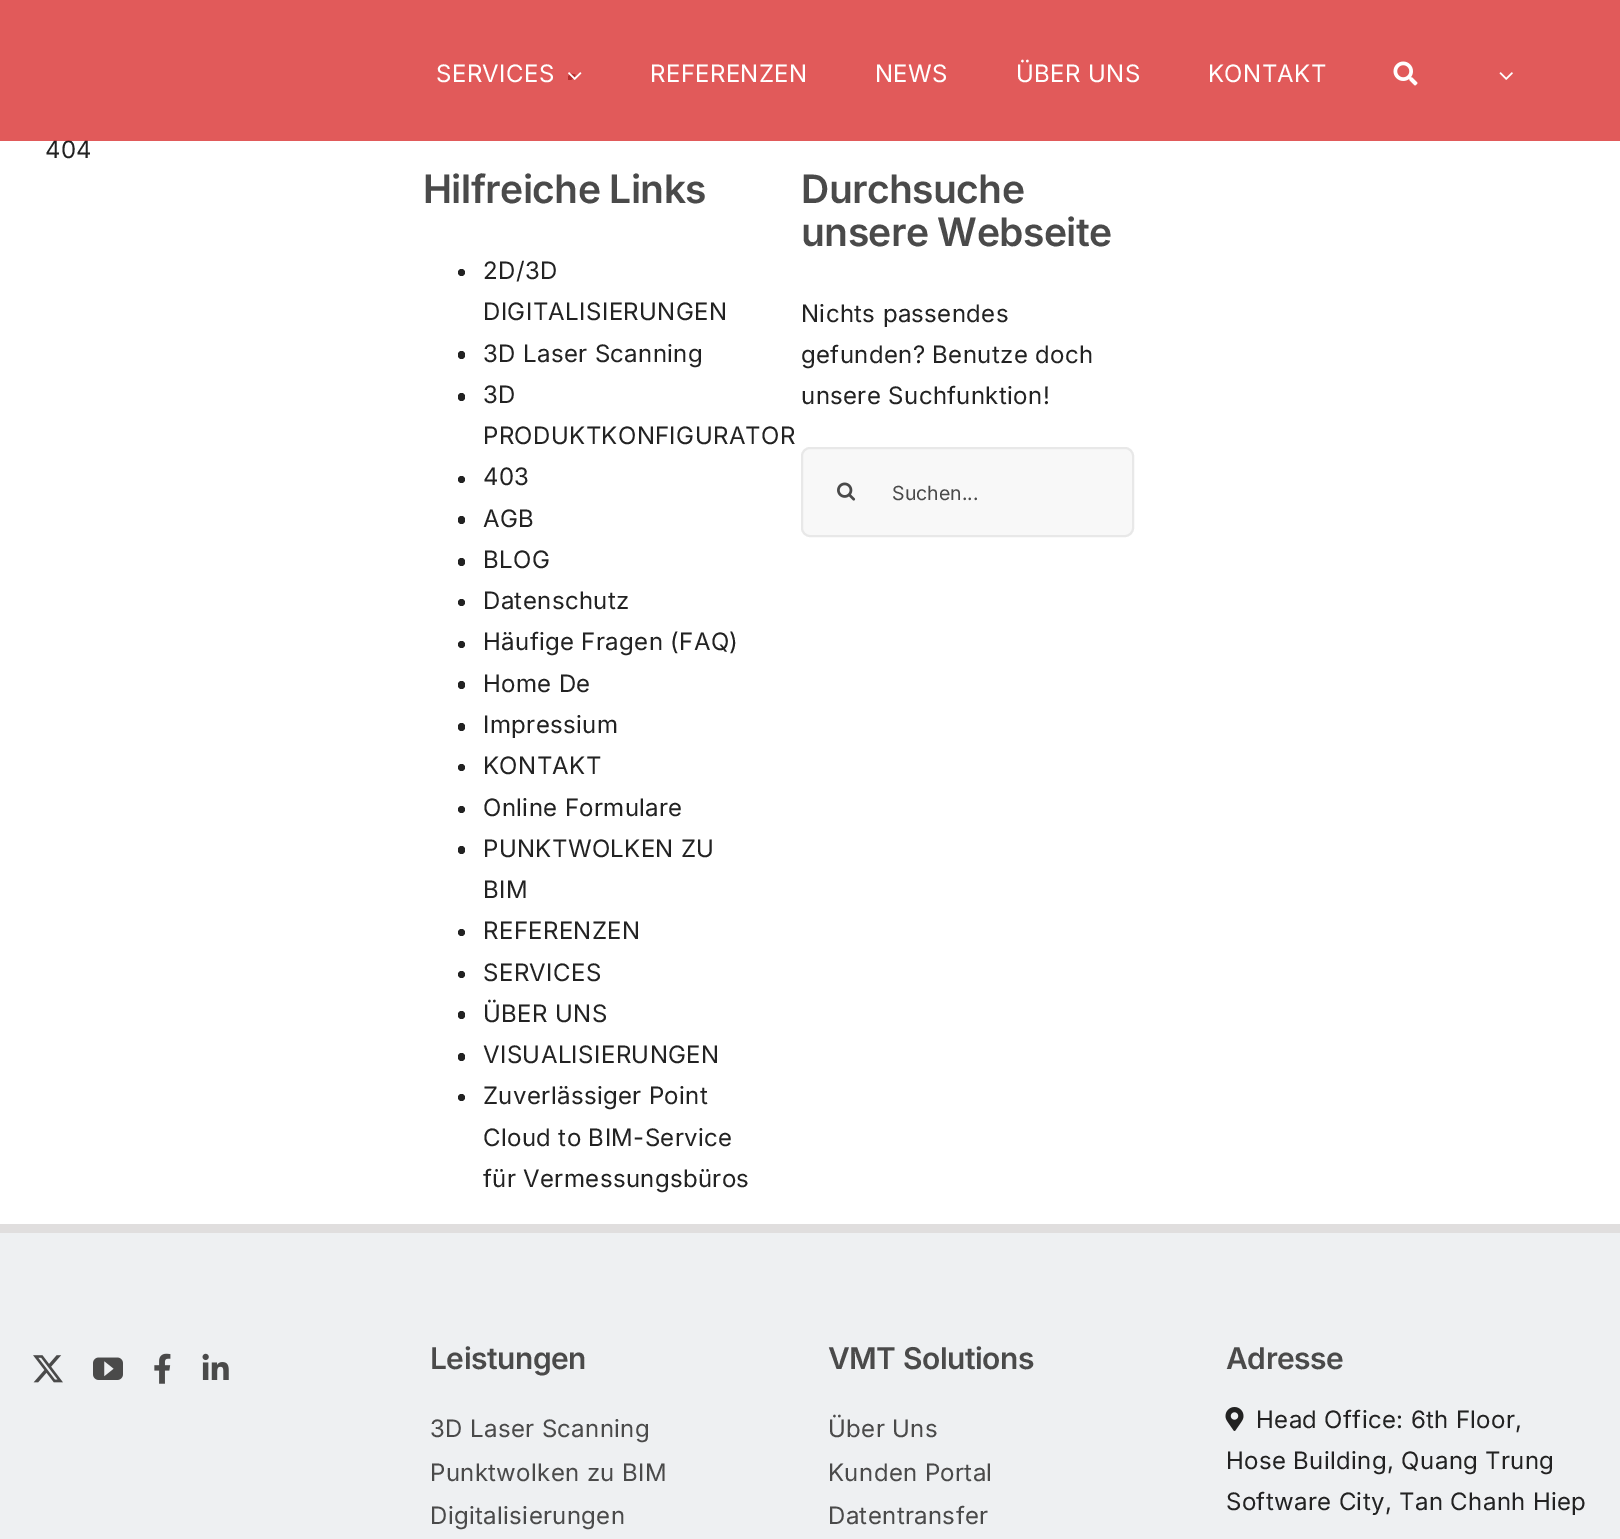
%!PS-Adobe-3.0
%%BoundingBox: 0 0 1620 1539
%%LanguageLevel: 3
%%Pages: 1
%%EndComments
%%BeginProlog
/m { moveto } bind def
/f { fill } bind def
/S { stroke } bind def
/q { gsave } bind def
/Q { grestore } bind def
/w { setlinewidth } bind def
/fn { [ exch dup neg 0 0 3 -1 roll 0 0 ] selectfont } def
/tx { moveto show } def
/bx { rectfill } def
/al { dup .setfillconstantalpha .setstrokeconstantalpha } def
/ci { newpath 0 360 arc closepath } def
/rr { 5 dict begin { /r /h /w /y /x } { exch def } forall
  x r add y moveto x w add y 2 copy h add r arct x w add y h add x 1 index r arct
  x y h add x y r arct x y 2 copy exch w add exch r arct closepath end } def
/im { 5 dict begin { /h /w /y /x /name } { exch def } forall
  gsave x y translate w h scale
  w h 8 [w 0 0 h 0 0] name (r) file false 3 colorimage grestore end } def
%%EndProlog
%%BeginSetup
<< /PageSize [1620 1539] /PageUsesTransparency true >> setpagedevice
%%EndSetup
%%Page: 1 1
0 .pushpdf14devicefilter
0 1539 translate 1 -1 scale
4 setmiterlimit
1 setgray
0 0 1620 1539 bx
/Inter-Regular 24 fn
0.133 setgray
45 158 m 0.35 0 (404) ashow
0.75 al
0.843 0.137 0.137 setrgbcolor
0 0 1620 141 bx
1 al
1 setgray
436 82 m 0.35 0 (SERVICES) ashow
(image0.raw) 568 72 14 8 im
650 82 m 0.35 0 (REFERENZEN) ashow
875 82 m 0.35 0 (NEWS) ashow
1016 82 m 0.35 0 (ÜBER UNS) ashow
1208 82 m 0.35 0 (KONTAKT) ashow
(image1.raw) 1393 61 25 25 im
(image2.raw) 1499 72 14 8 im
/Inter-SemiBold 39 fn
0.29 setgray
423 203 m -0.6 0 (Hilfreiche Links) ashow
0.133 setgray
461.5 272.5 3.5 ci f
/Inter-Regular 24 fn
483 279 m 0.35 0 (2D/3D) ashow
483 320 m 0.35 0 (DIGITALISIERUNGEN) ashow
458 351 7 8 3.5 rr f
483 362 m 0.35 0 (3D Laser Scanning) ashow
458 393 7 8 3.5 rr f
483 403 m 0.35 0 (3D) ashow
483 444 m 0.35 0 (PRODUKTKONFIGURATOR) ashow
461.5 479.5 3.5 ci f
483 485 m 0.35 0 (403) ashow
458 516 7 8 3.5 rr f
483 527 m 0.35 0 (AGB) ashow
458 558 7 8 3.5 rr f
483 568 m 0.35 0 (BLOG) ashow
461.5 602.5 3.5 ci f
483 609 m 0.35 0 (Datenschutz) ashow
461.5 644.5 3.5 ci f
483 650 m 0.35 0 (Häufige Fragen \(FAQ\)) ashow
458 681 7 8 3.5 rr f
483 692 m 0.35 0 (Home De) ashow
458 723 7 8 3.5 rr f
483 733 m 0.35 0 (Impressium) ashow
461.5 767.5 3.5 ci f
483 774 m 0.35 0 (KONTAKT) ashow
461.5 809.5 3.5 ci f
483 816 m 0.35 0 (Online Formulare) ashow
458 846 7 8 3.5 rr f
483 857 m 0.35 0 (PUNKTWOLKEN ZU) ashow
483 898 m 0.35 0 (BIM) ashow
461.5 932.5 3.5 ci f
483 939 m 0.35 0 (REFERENZEN) ashow
461.5 974.5 3.5 ci f
483 981 m 0.35 0 (SERVICES) ashow
458 1011 7 8 3.5 rr f
483 1022 m 0.35 0 (ÜBER UNS) ashow
458 1053 7 8 3.5 rr f
483 1063 m 0.35 0 (VISUALISIERUNGEN) ashow
461.5 1097.5 3.5 ci f
483 1104 m 0.35 0 (Zuverlässiger Point) ashow
483 1146 m 0.35 0 (Cloud to BIM-Service) ashow
483 1187 m 0.35 0 (für Vermessungsbüros) ashow
/Inter-SemiBold 39 fn
0.29 setgray
801 203 m -0.6 0 (Durchsuche) ashow
801 246 m -0.6 0 (unsere Webseite) ashow
/Inter-Regular 24 fn
0.133 setgray
801 322 m 0.35 0 (Nichts passendes) ashow
801 363 m 0.35 0 (gefunden? Benutze doch) ashow
801 404 m 0.35 0 (unsere Suchfunktion!) ashow
0.973 setgray
802 448 331 88 8 rr q f Q
0.91 setgray
2 w
S
(image3.raw) 837 482 19 19 im
/Inter-Regular 19.5 fn
0.29 setgray
(Suchen...) 892 500 tx
0.933 0.941 0.949 setrgbcolor
0 1233 1620 306 bx
0.878 0.871 0.871 setrgbcolor
0 1224 1620 9 bx
(image4.raw) 33 1355 30 28 im
(image5.raw) 93 1357 30 23 im
(image6.raw) 154 1353 17 31 im
(image7.raw) 202 1353 27 27 im
/Inter-SemiBold 30 fn
0.29 setgray
430 1369 m -0.5 0 (Leistungen) ashow
/Inter-Regular 24 fn
430 1437 m 0.35 0 (3D Laser Scanning) ashow
430 1481 m 0.35 0 (Punktwolken zu BIM) ashow
430 1524 m 0.35 0 (Digitalisierungen) ashow
/Inter-SemiBold 30 fn
828 1369 m -0.5 0 (VMT Solutions) ashow
/Inter-Regular 24 fn
828 1437 m 0.35 0 (Über Uns) ashow
828 1481 m 0.35 0 (Kunden Portal) ashow
828 1524 m 0.35 0 (Datentransfer) ashow
/Inter-SemiBold 30 fn
1226 1369 m -0.5 0 (Adresse) ashow
(image8.raw) 1225 1407 19 24 im
/Inter-Regular 24 fn
0.133 setgray
1256 1428 m 0.35 0 (Head Office: 6th Floor,) ashow
1226 1469 m 0.35 0 (Hose Building, Quang Trung) ashow
1226 1510 m 0.35 0 (Software City, Tan Chanh Hiep) ashow
.poppdf14devicefilter showpage
%%EOF
